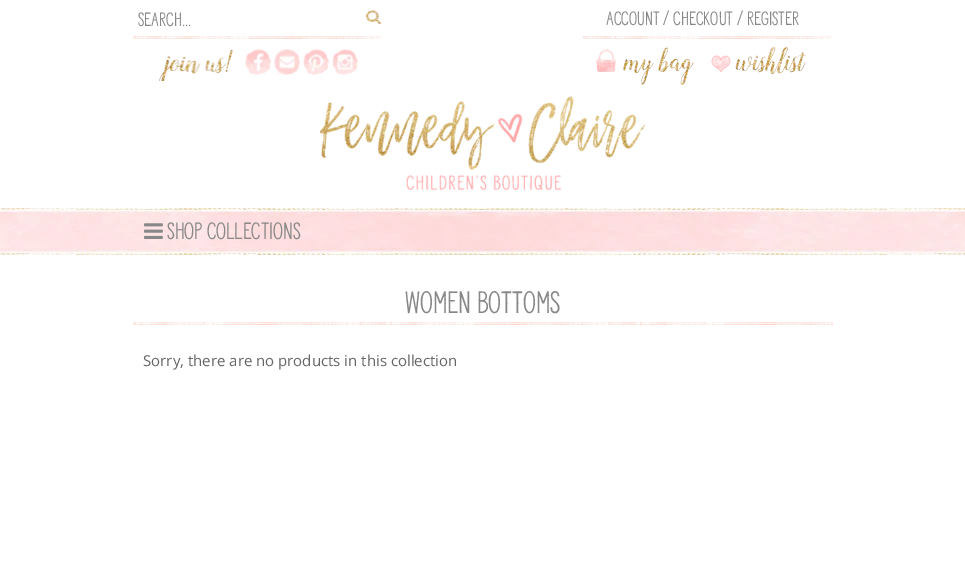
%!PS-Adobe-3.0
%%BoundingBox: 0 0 965 567
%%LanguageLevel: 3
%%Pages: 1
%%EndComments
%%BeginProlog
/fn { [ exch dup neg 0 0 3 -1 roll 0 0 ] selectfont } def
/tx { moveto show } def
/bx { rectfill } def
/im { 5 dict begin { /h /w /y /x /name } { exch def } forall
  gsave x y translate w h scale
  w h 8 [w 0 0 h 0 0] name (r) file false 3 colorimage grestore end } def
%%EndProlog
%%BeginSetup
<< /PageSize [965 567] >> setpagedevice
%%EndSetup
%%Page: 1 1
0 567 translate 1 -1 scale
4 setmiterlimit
1 setgray
0 0 965 567 bx
(image0.raw) 133 36 249 3 im
/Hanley-Regular 18 fn
0.533 setgray
(SEARCH...) 138 26 tx
(image1.raw) 366 10 15 15 im
(image2.raw) 159 49 74 32 im
(image3.raw) 245 49 26 26 im
(image4.raw) 274 49 26 26 im
(image5.raw) 303 49 26 26 im
(image6.raw) 332 49 26 26 im
(image0.raw) 583 36 249 3 im
(ACCOUNT) 606 25 tx
/Hanley-Regular 19 fn
(/) 662 25 tx
/Hanley-Regular 18 fn
(CHECKOUT) 673 25 tx
/Hanley-Regular 19 fn
(/) 736 25 tx
/Hanley-Regular 18 fn
(REGISTER) 747 25 tx
(image7.raw) 596 47 98 38 im
(image8.raw) 711 47 95 27 im
(image9.raw) 320 96 325 95 im
(image10.raw) 0 208 965 47 im
(image11.raw) 144 223 19 16 im
/Hanley-Regular 22 fn
(SHOP COLLECTIONS) 167 239 tx
(image12.raw) 133 322 700 3 im
/Hanley-Regular 29 fn
(women bottoms) 405 313 tx
/OpenSans-Regular 15 fn
0.4 setgray
(Sorry, there are no products in this collection) 143 366 tx
showpage
%%EOF
